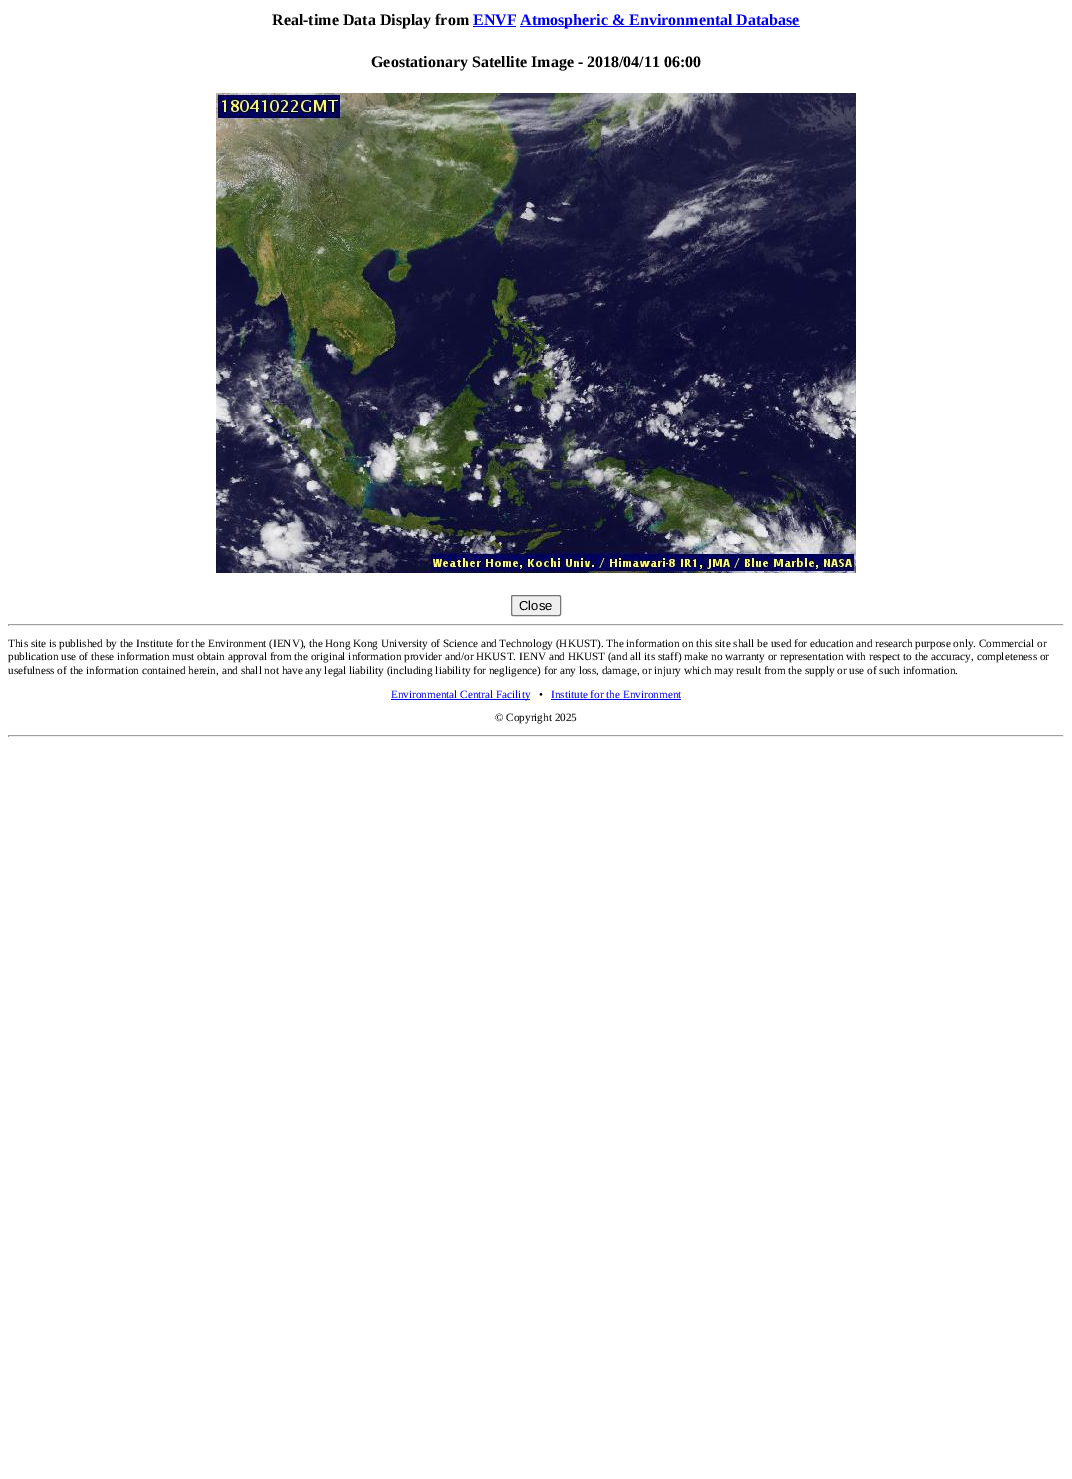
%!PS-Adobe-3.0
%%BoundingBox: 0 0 1072 1479
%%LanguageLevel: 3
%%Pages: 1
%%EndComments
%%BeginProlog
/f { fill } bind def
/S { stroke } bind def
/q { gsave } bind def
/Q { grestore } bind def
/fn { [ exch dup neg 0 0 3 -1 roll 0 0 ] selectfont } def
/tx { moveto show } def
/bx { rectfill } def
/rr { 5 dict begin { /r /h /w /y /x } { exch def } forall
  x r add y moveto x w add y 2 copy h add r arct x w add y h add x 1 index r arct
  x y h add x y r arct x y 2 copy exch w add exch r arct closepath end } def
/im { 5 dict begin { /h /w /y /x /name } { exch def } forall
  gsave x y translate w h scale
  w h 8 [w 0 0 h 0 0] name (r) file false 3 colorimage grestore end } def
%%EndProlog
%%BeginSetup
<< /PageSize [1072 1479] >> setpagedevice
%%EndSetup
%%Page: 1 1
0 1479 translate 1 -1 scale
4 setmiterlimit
1 setgray
0 0 1072 1479 bx
/LiberationSerif-Bold 16 fn
0 setgray
(Real-time Data Display from) 272 25 tx
0 0 0.933 setrgbcolor
(ENVF) 473 25 tx
473 26 43 1 bx
520 26 280 1 bx
(Atmospheric & Environmental Database) 520 25 tx
0 setgray
(Geostationary Satellite Image - 2018/04/11 06:00) 371 67 tx
(image0.raw) 216 93 640 480 im
0.937 setgray
511.5 595.5 49 20 1.5 rr q f Q
0.463 setgray
S
/LiberationSans-Regular 13 fn
0 setgray
(Close) 519 610 tx
0.624 setgray
8 624 1056 1 bx
0.933 setgray
1063 624 1 2 bx
8 625 1056 1 bx
0.624 setgray
8 624 1 2 bx
/LiberationSerif-Regular 11.2 fn
0 setgray
(This site is published by the Institute for the Environment \(IENV\), the Hong Kong University of Science and Technology \(HKUST\). The information on this site shall be used for education and research purpose only. Commercial or) 8 647 tx
(publication use of these information must obtain approval from the original information provider and/or HKUST. IENV and HKUST \(and all its staff\) make no warranty or representation with respect to the accuracy, completeness or) 8 660 tx
(usefulness of the information contained herein, and shall not have any legal liability \(including liability for negligence\) for any loss, damage, or injury which may result from the supply or use of such information.) 8 674 tx
0 0 0.933 setrgbcolor
391 699 139 1 bx
(Environmental Central Facility) 391 698 tx
0 setgray
(•) 539 698 tx
0 0 0.933 setrgbcolor
(Institute for the Environment) 551 698 tx
551 699 130 1 bx
0 setgray
(© Copyright 2025) 495 721 tx
0.624 setgray
8 735 1056 1 bx
0.933 setgray
1063 735 1 2 bx
8 736 1056 1 bx
0.624 setgray
8 735 1 2 bx
showpage
%%EOF
